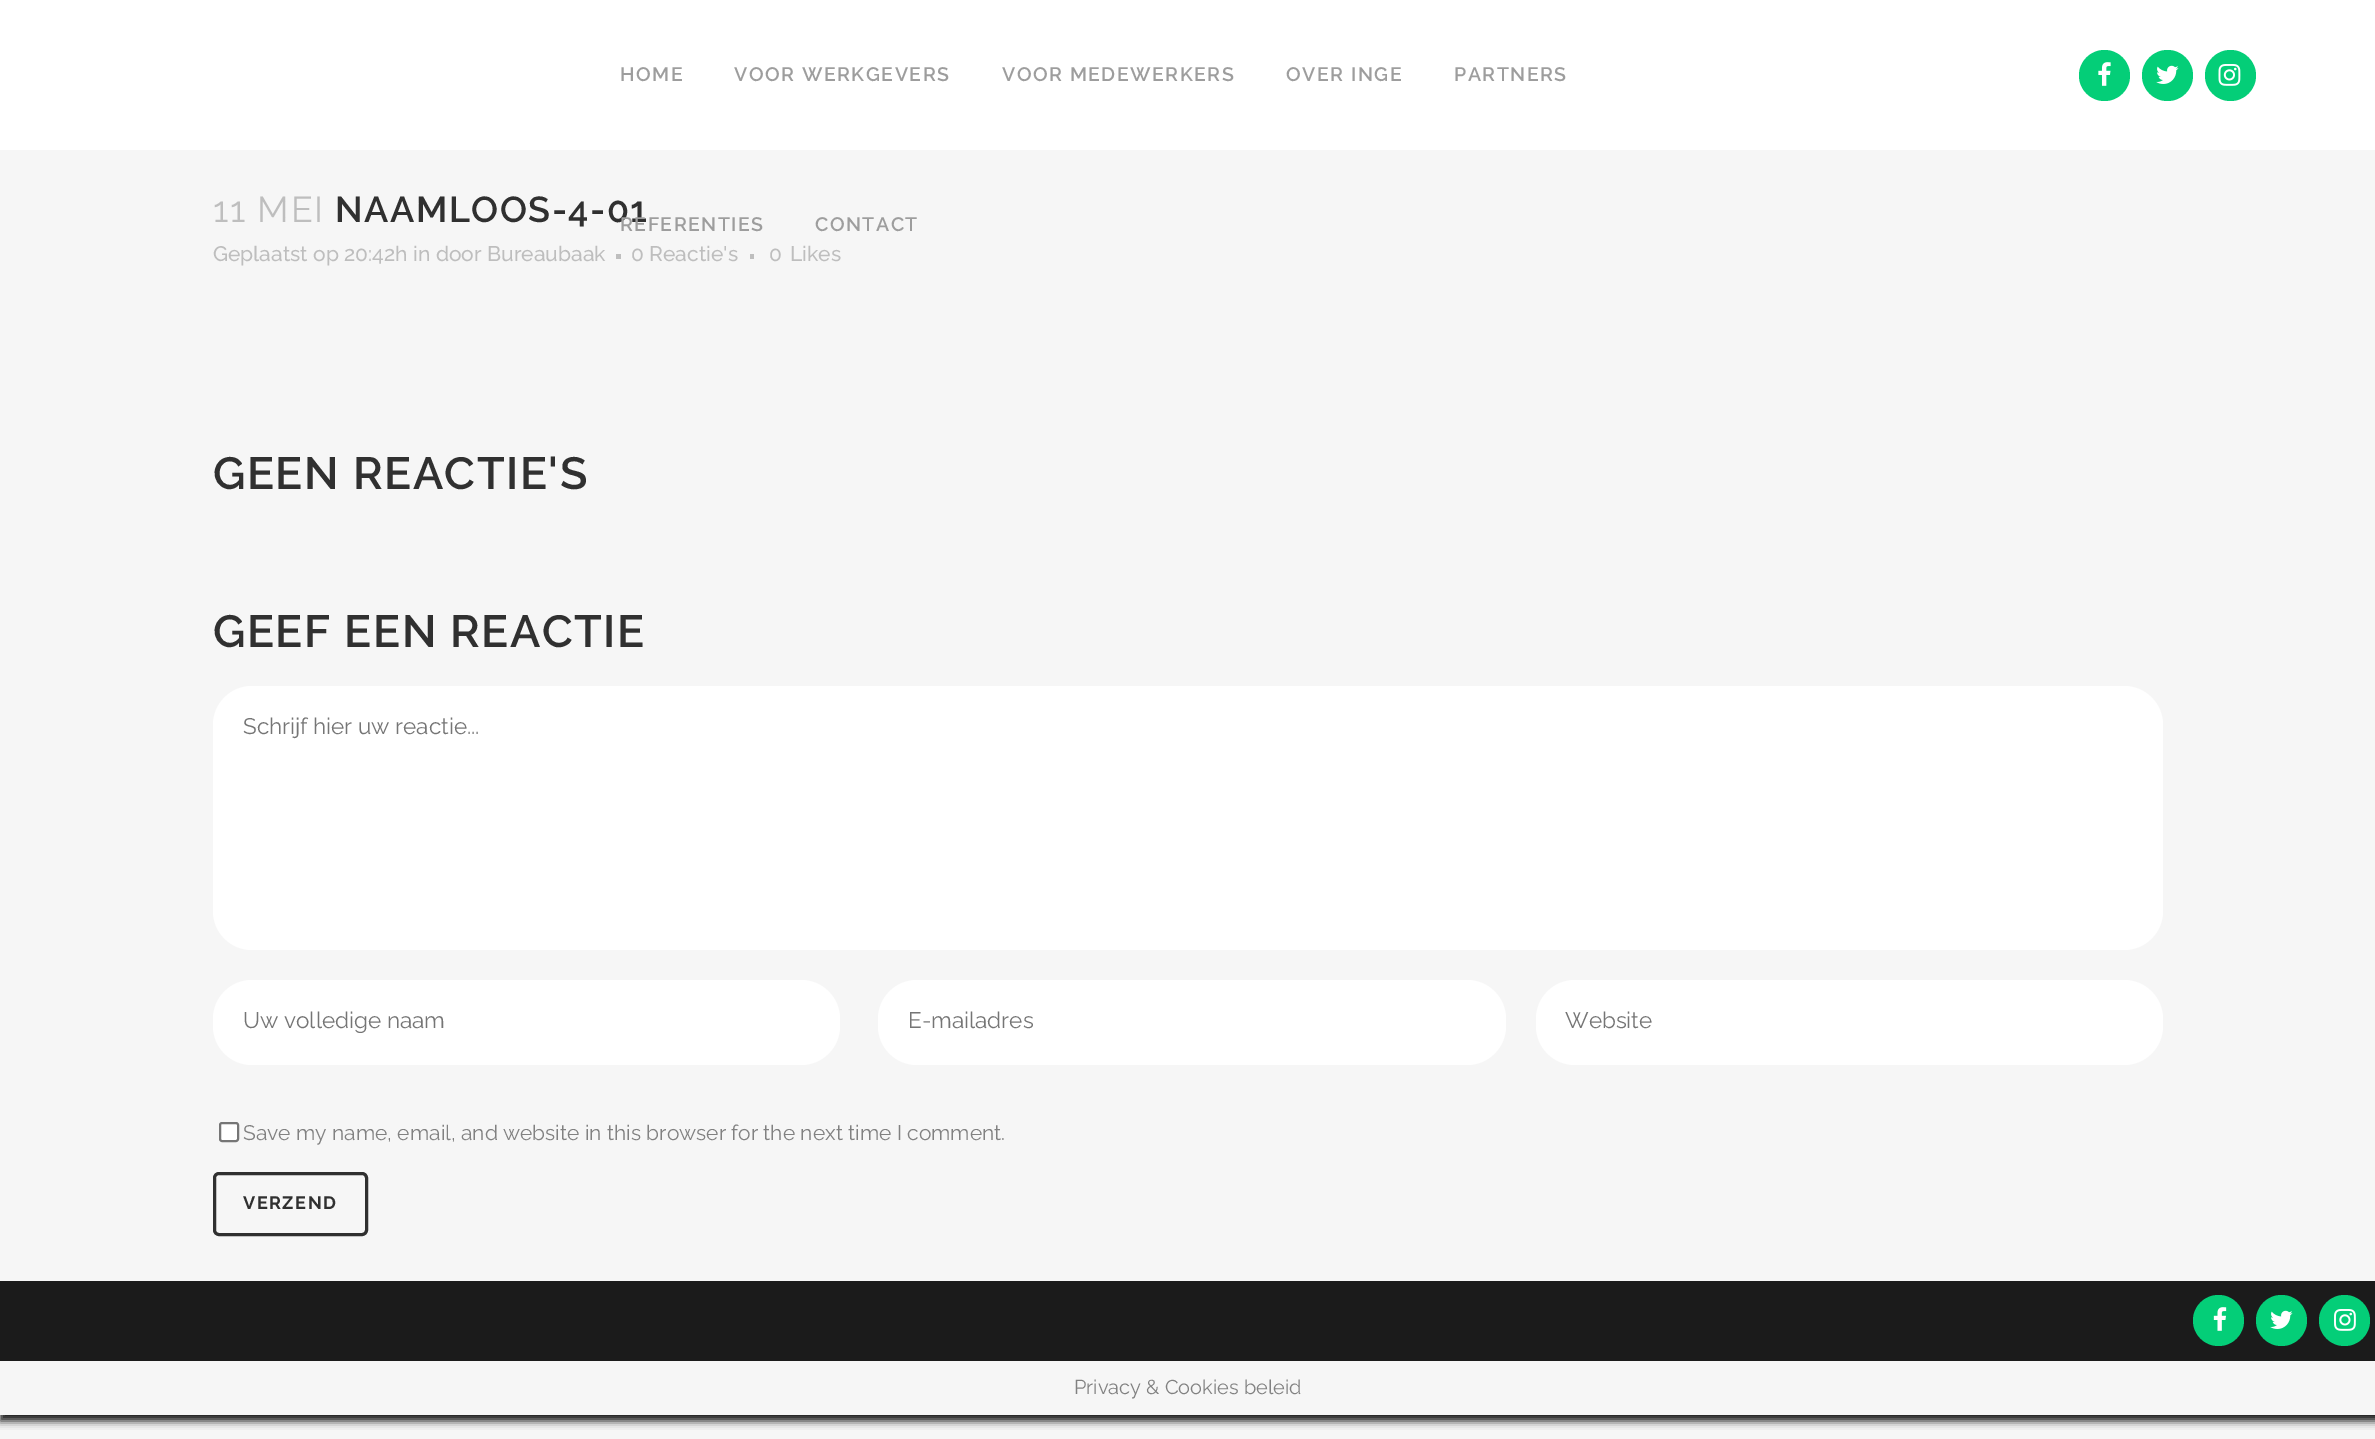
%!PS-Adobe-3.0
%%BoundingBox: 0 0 2375 1439
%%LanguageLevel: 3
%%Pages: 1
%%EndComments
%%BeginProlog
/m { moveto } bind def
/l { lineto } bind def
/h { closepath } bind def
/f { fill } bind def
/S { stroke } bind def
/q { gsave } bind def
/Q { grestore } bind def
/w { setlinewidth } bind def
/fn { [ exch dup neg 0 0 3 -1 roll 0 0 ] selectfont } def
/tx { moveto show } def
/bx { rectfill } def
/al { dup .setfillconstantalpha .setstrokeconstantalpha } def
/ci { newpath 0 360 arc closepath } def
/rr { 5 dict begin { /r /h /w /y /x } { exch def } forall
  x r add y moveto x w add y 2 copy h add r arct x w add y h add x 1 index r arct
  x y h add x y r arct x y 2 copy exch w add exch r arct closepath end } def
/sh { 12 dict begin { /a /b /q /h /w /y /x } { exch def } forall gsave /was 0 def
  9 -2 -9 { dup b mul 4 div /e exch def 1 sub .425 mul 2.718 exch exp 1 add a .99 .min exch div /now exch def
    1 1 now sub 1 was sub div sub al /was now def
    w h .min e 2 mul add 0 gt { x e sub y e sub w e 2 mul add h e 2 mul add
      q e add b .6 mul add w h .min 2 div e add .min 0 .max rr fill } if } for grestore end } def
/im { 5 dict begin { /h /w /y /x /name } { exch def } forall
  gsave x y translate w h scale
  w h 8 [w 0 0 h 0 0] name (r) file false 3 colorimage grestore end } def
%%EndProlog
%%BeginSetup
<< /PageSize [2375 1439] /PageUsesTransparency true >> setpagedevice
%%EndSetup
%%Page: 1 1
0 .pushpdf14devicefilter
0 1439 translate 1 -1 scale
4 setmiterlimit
0.965 setgray
0 0 2375 1439 bx
1 setgray
0 0 2375 150 bx
/Raleway-SemiBold 19.5 fn
0.616 setgray
620 81 m 1.5 0 (HOME) ashow
734 81 m 1.5 0 (VOOR WERKGEVERS) ashow
1002 81 m 1.5 0 (VOOR MEDEWERKERS) ashow
1286 81 m 1.5 0 (OVER INGE) ashow
1454 81 m 1.5 0 (PARTNERS) ashow
/Raleway-SemiBold 36 fn
0.188 setgray
335 222 m 1.5 0 (NAAMLOOS-4-01) ashow
/Raleway-SemiBold 19.5 fn
0.616 setgray
620 231 m 1.5 0 (REFERENTIES) ashow
815 231 m 1.5 0 (CONTACT) ashow
0.016 0.808 0.471 setrgbcolor
2104.5 75.5 25.5 ci f
(image0.raw) 2098 62 13 24 im
2167.5 75.5 25.5 ci f
(image1.raw) 2156 65 23 19 im
2230.5 75.5 25.5 ci f
(image2.raw) 2218 64 23 22 im
/Raleway-Regular 36 fn
0.745 setgray
213 222 m 1.5 0 (11 MEI) ashow
/Raleway-Medium 21 fn
(Geplaatst op 20:42h in door Bureaubaak) 213 261 tx
616 254 5 5 bx
(0 Reactie's) 631 261 tx
750 254 4 5 bx
(0) 769 261 tx
(Likes) 790 261 tx
/Raleway-SemiBold 45 fn
0.188 setgray
213 489 m 1.5 0 (GEEN REACTIE'S) ashow
213 647 m 1.5 0 (GEEF EEN REACTIE) ashow
1 setgray
213 686 1950 264 39 rr f
/Raleway-Regular 22.5 fn
0.459 setgray
(Schrijf hier uw reactie...) 243 734 tx
1 setgray
213 980 627 85 39 rr f
0.459 setgray
(Uw volledige naam) 243 1028 tx
1 setgray
878 980 628 85 39 rr f
0.459 setgray
(E-mailadres) 908 1028 tx
1 setgray
1536 980 627 85 39 rr f
0.459 setgray
(Website) 1565 1028 tx
1 setgray
220 1123 18 18 2 rr q f Q
0.463 setgray
2 w
S
/Raleway-Regular 21 fn
0.506 setgray
(Save my name, email, and website in this browser for the next time I comment.) 243 1140 tx
0.188 setgray
3 w
214.5 1173.5 152 61 4.5 rr S
/Raleway-Bold 18 fn
243 1209 m 1.5 0 (VERZEND) ashow
q
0 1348 m 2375 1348 l 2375 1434 l 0 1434 l h 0 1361 m 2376 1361 l 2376 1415 l 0 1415 l h eoclip newpath
0.086 setgray
0 1361 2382 60 0 4 1 sh
Q
0.106 setgray
0 1281 2375 80 bx
0.016 0.808 0.471 setrgbcolor
2218.5 1320.5 25.5 ci f
(image3.raw) 2213 1307 14 24 im
2281.5 1320.5 25.5 ci f
(image1.raw) 2270 1310 23 19 im
2344.5 1320.5 25.5 ci f
(image4.raw) 2334 1309 22 22 im
/Raleway-Regular 20 fn
0.506 setgray
(Privacy & Cookies beleid) 1074 1394 tx
.poppdf14devicefilter showpage
%%EOF
